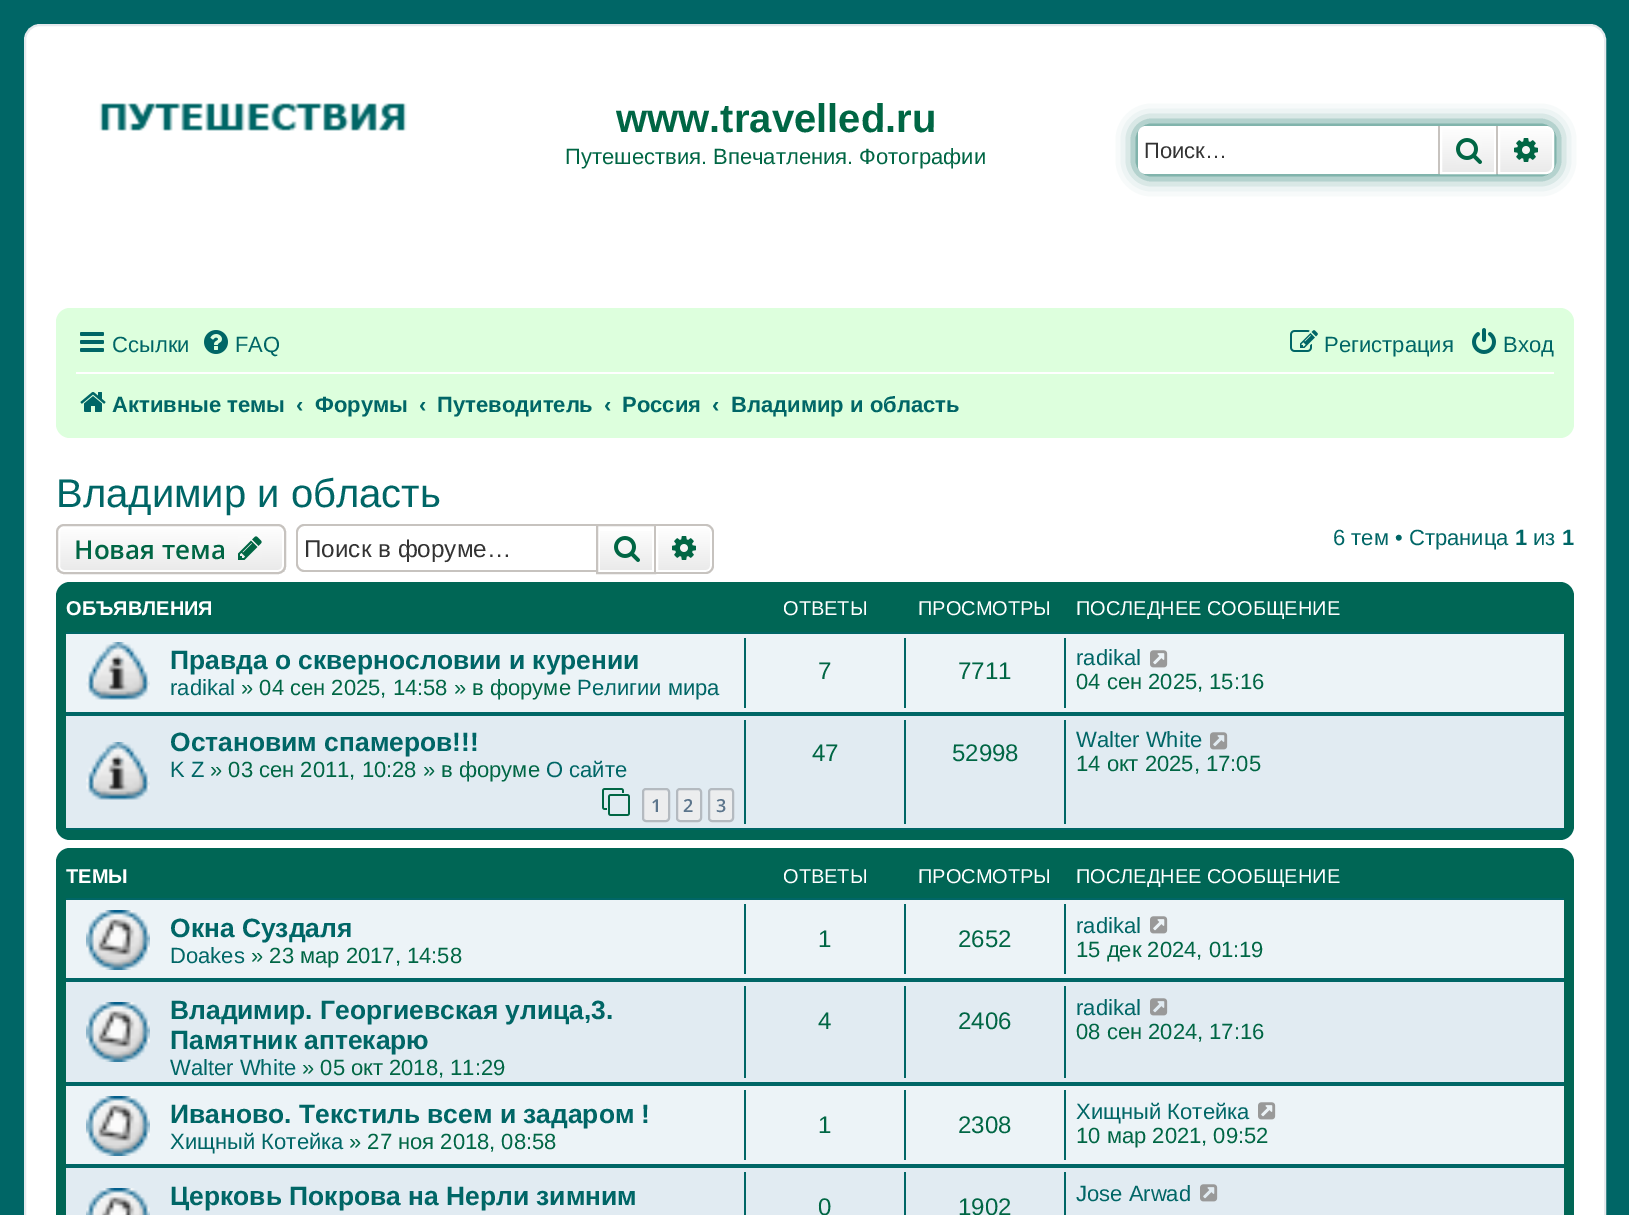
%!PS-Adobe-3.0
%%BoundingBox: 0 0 1629 1215
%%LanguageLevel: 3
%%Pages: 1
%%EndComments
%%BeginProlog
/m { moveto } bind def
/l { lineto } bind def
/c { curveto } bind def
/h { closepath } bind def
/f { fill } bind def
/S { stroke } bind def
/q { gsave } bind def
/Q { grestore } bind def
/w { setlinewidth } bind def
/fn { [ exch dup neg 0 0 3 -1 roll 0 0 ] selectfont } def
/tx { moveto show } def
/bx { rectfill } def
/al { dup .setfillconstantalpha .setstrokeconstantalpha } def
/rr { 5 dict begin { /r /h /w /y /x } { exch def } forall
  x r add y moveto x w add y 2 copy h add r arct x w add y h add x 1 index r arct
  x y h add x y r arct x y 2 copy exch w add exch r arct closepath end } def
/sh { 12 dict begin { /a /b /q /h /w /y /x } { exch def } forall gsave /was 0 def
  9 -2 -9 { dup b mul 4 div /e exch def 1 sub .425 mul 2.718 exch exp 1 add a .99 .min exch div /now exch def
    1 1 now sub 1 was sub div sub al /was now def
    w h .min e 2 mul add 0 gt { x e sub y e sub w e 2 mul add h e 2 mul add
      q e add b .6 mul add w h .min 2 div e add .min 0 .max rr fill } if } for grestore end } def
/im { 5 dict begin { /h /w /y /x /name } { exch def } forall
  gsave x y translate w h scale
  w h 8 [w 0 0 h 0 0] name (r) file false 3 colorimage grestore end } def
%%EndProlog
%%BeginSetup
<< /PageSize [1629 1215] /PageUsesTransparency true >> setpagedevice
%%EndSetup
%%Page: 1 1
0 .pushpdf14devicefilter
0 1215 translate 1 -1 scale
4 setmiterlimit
0 0.4 0.4 setrgbcolor
0 0 1629 1215 bx
1 setgray
25 25 1580 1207 15 rr q f Q
0.902 0.914 0.929 setrgbcolor
2 w
S
(image0.raw) 99 103 308 28 im
/LiberationSans-Bold 40 fn
0 0.4 0.267 setrgbcolor
(www.travelled.ru) 616 132 tx
/LiberationSans-Regular 22 fn
(Путешествия. Впечатления. Фотографии) 565 164 tx
0 0.4 0.333 setrgbcolor
1138 126 416 48 8 10 1 sh
1 setgray
1146 126 m 1438 126 l 1438 174 l 1146 174 l 1141.5 174 1138 170.5 1138 166 c 1138 134 l 1138 129.5 1141.5 126 1146 126 c h f
0.2 setgray
(Поиск…) 1144 158 tx
q 1442 128 m 1494 128 l 1494 172 l 1442 172 l h clip newpath
<< /ShadingType 2 /ColorSpace /DeviceRGB /Coords [1468 126 1468 174] /Extend [true true] /Function << /FunctionType 2 /Domain [0 1] /C0 [1 1 1] /C1 [0.914 0.914 0.914] /N 1 >> >> shfill Q
1 setgray
1441 127 54 46 rectstroke
0.78 0.765 0.749 setrgbcolor
1496 126 2 48 bx
1438 126 2 48 bx
(image1.raw) 1456 138 26 26 im
q 1499 127 m 1546 127 l 1550 127 1553 130 1553 134 c 1553 166 l 1553 170 1550 173 1546 173 c 1499 173 l h clip newpath
<< /ShadingType 2 /ColorSpace /DeviceRGB /Coords [1526 126 1526 174] /Extend [true true] /Function << /FunctionType 2 /Domain [0 1] /C0 [1 1 1] /C1 [0.914 0.914 0.914] /N 1 >> >> shfill Q
1 setgray
1499 127 m 1546 127 l 1550 127 1553 130 1553 134 c 1553 166 l 1553 170 1550 173 1546 173 c 1499 173 l h S
(image2.raw) 1514 138 24 24 im
0.867 1 0.867 setrgbcolor
56 308 1518 130 14 rr f
(image3.raw) 80 332 24 20 im
0 0.4 0.4 setrgbcolor
(Ссылки) 112 352 tx
(image4.raw) 204 330 24 24 im
(FAQ) 235 352 tx
(image5.raw) 1290 330 28 22 im
(Регистрация) 1324 352 tx
(image6.raw) 1472 328 24 26 im
(Вход) 1503 352 tx
1 setgray
76 372 1478 2 bx
(image7.raw) 80 392 26 20 im
/LiberationSans-Bold 22 fn
0 0.4 0.4 setrgbcolor
(Активные темы) 112 412 tx
(‹) 296 412 tx
(Форумы) 315 412 tx
(‹) 419 412 tx
(Путеводитель) 437 412 tx
(‹) 604 412 tx
(Россия) 622 412 tx
(‹) 712 412 tx
(Владимир и область) 731 412 tx
/LiberationSans-Regular 40 fn
(Владимир и область) 56 507 tx
q
56 524 230 50 8 rr clip newpath
q 56 526 m 286 526 l 286 572 l 56 572 l h clip newpath
<< /ShadingType 2 /ColorSpace /DeviceRGB /Coords [171 526 171 572] /Extend [true true] /Function << /FunctionType 2 /Domain [0 1] /C0 [1 1 1] /C1 [0.914 0.914 0.914] /N 1 >> >> shfill Q
Q
1 setgray
59 527 224 44 5 rr S
0.78 0.765 0.749 setrgbcolor
57 525 228 48 7 rr S
/OpenSans-SemiBold 26 fn
0 0.4 0.267 setrgbcolor
(Новая тема) 74 559 tx
(image8.raw) 238 536 24 24 im
0.78 0.765 0.749 setrgbcolor
304 524 m 596 524 l 596 572 l 304 572 l 300 572 296 568 296 564 c 296 532 l 296 528 300 524 304 524 c h 304 526 m 596 526 l 596 570 l 304 570 l 301 570 298 567 298 564 c 298 532 l 298 529 301 526 304 526 c h eofill
/LiberationSans-Regular 24.25 fn
0.2 setgray
(Поиск в форуме…) 304 557 tx
q 600 531 m 652 531 l 652 570 l 600 570 l h clip newpath
<< /ShadingType 2 /ColorSpace /DeviceRGB /Coords [626 526 626 572] /Extend [true true] /Function << /FunctionType 2 /Domain [0 1] /C0 [1 1 1] /C1 [0.914 0.914 0.914] /N 1 >> >> shfill Q
0.78 0.765 0.749 setrgbcolor
597 525 58 48 rectstroke
(image9.raw) 614 536 26 26 im
q 657 527 m 706 527 l 709 527 711 529 711 532 c 711 566 l 711 569 709 571 706 571 c 657 571 l h clip newpath
<< /ShadingType 2 /ColorSpace /DeviceRGB /Coords [684 526 684 572] /Extend [true true] /Function << /FunctionType 2 /Domain [0 1] /C0 [1 1 1] /C1 [0.914 0.914 0.914] /N 1 >> >> shfill Q
1 setgray
657 527 m 706 527 l 709 527 711 529 711 532 c 711 566 l 711 569 709 571 706 571 c 657 571 l h S
0.78 0.765 0.749 setrgbcolor
656 524 m 706 524 l 710 524 714 528 714 532 c 714 566 l 714 570 710 574 706 574 c 656 574 l h 656 526 m 706 526 l 709 526 712 529 712 532 c 712 566 l 712 569 709 572 706 572 c 656 572 l h eofill
(image10.raw) 672 536 24 24 im
/LiberationSans-Regular 22 fn
0 0.4 0.4 setrgbcolor
(6 тем • Страница) 1333 545 tx
/LiberationSans-Bold 22 fn
(1) 1515 545 tx
/LiberationSans-Regular 22 fn
(из) 1533 545 tx
/LiberationSans-Bold 22 fn
(1) 1562 545 tx
0 0.4 0.333 setrgbcolor
56 582 1518 258 14 rr f
/LiberationSans-Bold 20 fn
1 setgray
(ОБЪЯВЛЕНИЯ) 66 615 tx
/LiberationSans-Regular 20 fn
(ОТВЕТЫ) 783 615 tx
(ПРОСМОТРЫ) 918 615 tx
(ПОСЛЕДНЕЕ СООБЩЕНИЕ) 1076 615 tx
0.925 0.953 0.969 setrgbcolor
66 634 1498 78 bx
0 0.4 0.4 setrgbcolor
66 632 1498 2 bx
66 712 1498 4 bx
(image11.raw) 86 642 64 58 im
/LiberationSans-Bold 26.4 fn
(Правда о сквернословии и курении) 170 669 tx
/LiberationSans-Regular 22 fn
(radikal) 170 695 tx
0 0.4 0.267 setrgbcolor
(» 04 сен 2025, 14:58 » в форуме) 241 695 tx
0 0.4 0.4 setrgbcolor
(Религии мира) 577 695 tx
744 638 2 70 bx
/LiberationSans-Regular 24 fn
0 0.4 0.267 setrgbcolor
(7) 818 679 tx
0 0.4 0.4 setrgbcolor
904 638 2 70 bx
0 0.4 0.267 setrgbcolor
(7711) 958 679 tx
0 0.4 0.4 setrgbcolor
1064 638 2 70 bx
/LiberationSans-Regular 22 fn
(radikal) 1076 665 tx
(image12.raw) 1150 650 18 18 im
0 0.4 0.267 setrgbcolor
(04 сен 2025, 15:16) 1076 689 tx
0.882 0.922 0.949 setrgbcolor
66 716 1498 112 bx
0 0.4 0.4 setrgbcolor
66 828 1498 2 bx
(image13.raw) 86 742 64 58 im
/LiberationSans-Bold 26.4 fn
(Остановим спамеров!!!) 170 751 tx
/LiberationSans-Regular 22 fn
(K Z) 170 777 tx
0 0.4 0.267 setrgbcolor
(» 03 сен 2011, 10:28 » в форуме) 210 777 tx
0 0.4 0.4 setrgbcolor
(О сайте) 546 777 tx
(image14.raw) 602 788 28 28 im
0.925 0.929 0.933 setrgbcolor
643 789 26 32 3 rr q f Q
0.706 0.729 0.753 setrgbcolor
S
/OpenSans-SemiBold 18 fn
0.361 0.459 0.549 setrgbcolor
(1) 651 812 tx
0.925 0.929 0.933 setrgbcolor
677 789 24 32 3 rr q f Q
0.706 0.729 0.753 setrgbcolor
S
0.361 0.459 0.549 setrgbcolor
(2) 683 812 tx
0.925 0.929 0.933 setrgbcolor
709 789 24 32 3 rr q f Q
0.706 0.729 0.753 setrgbcolor
S
0.361 0.459 0.549 setrgbcolor
(3) 716 812 tx
0 0.4 0.4 setrgbcolor
744 720 2 104 bx
/LiberationSans-Regular 24 fn
0 0.4 0.267 setrgbcolor
(47) 812 761 tx
0 0.4 0.4 setrgbcolor
904 720 2 104 bx
0 0.4 0.267 setrgbcolor
(52998) 952 761 tx
0 0.4 0.4 setrgbcolor
1064 720 2 104 bx
/LiberationSans-Regular 22 fn
(Walter White) 1076 747 tx
(image15.raw) 1210 732 18 18 im
0 0.4 0.267 setrgbcolor
(14 окт 2025, 17:05) 1076 771 tx
0 0.4 0.333 setrgbcolor
56 848 1518 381 14 rr f
/LiberationSans-Bold 20 fn
1 setgray
(ТЕМЫ) 66 883 tx
/LiberationSans-Regular 20 fn
(ОТВЕТЫ) 783 883 tx
(ПРОСМОТРЫ) 918 883 tx
(ПОСЛЕДНЕЕ СООБЩЕНИЕ) 1076 883 tx
0.925 0.953 0.969 setrgbcolor
66 900 1498 78 bx
0 0.4 0.4 setrgbcolor
66 898 1498 2 bx
66 978 1498 4 bx
(image16.raw) 86 910 64 60 im
/LiberationSans-Bold 26.4 fn
(Окна Суздаля) 170 937 tx
/LiberationSans-Regular 22 fn
(Doakes) 170 963 tx
0 0.4 0.267 setrgbcolor
(» 23 мар 2017, 14:58) 251 963 tx
0 0.4 0.4 setrgbcolor
744 904 2 70 bx
/LiberationSans-Regular 24 fn
0 0.4 0.267 setrgbcolor
(1) 818 947 tx
0 0.4 0.4 setrgbcolor
904 904 2 70 bx
0 0.4 0.267 setrgbcolor
(2652) 958 947 tx
0 0.4 0.4 setrgbcolor
1064 904 2 70 bx
/LiberationSans-Regular 22 fn
(radikal) 1076 933 tx
(image12.raw) 1150 916 18 18 im
0 0.4 0.267 setrgbcolor
(15 дек 2024, 01:19) 1076 957 tx
0.882 0.922 0.949 setrgbcolor
66 982 1498 100 bx
0 0.4 0.4 setrgbcolor
66 1082 1498 4 bx
(image17.raw) 86 1002 64 60 im
/LiberationSans-Bold 26.4 fn
(Владимир. Георгиевская улица,3.) 170 1019 tx
(Памятник аптекарю) 170 1049 tx
/LiberationSans-Regular 22 fn
(Walter White) 170 1075 tx
0 0.4 0.267 setrgbcolor
(» 05 окт 2018, 11:29) 302 1075 tx
0 0.4 0.4 setrgbcolor
744 986 2 92 bx
/LiberationSans-Regular 24 fn
0 0.4 0.267 setrgbcolor
(4) 818 1029 tx
0 0.4 0.4 setrgbcolor
904 986 2 92 bx
0 0.4 0.267 setrgbcolor
(2406) 958 1029 tx
0 0.4 0.4 setrgbcolor
1064 986 2 92 bx
/LiberationSans-Regular 22 fn
(radikal) 1076 1015 tx
(image15.raw) 1150 998 18 18 im
0 0.4 0.267 setrgbcolor
(08 сен 2024, 17:16) 1076 1039 tx
0.925 0.953 0.969 setrgbcolor
66 1086 1498 78 bx
0 0.4 0.4 setrgbcolor
66 1164 1498 4 bx
(image16.raw) 86 1096 64 60 im
/LiberationSans-Bold 26.4 fn
(Иваново. Текстиль всем и задаром !) 170 1123 tx
/LiberationSans-Regular 22 fn
(Хищный Котейка) 170 1149 tx
0 0.4 0.267 setrgbcolor
(» 27 ноя 2018, 08:58) 349 1149 tx
0 0.4 0.4 setrgbcolor
744 1090 2 70 bx
/LiberationSans-Regular 24 fn
0 0.4 0.267 setrgbcolor
(1) 818 1133 tx
0 0.4 0.4 setrgbcolor
904 1090 2 70 bx
0 0.4 0.267 setrgbcolor
(2308) 958 1133 tx
0 0.4 0.4 setrgbcolor
1064 1090 2 70 bx
/LiberationSans-Regular 22 fn
(Хищный Котейка) 1076 1119 tx
(image12.raw) 1258 1102 18 18 im
0 0.4 0.267 setrgbcolor
(10 мар 2021, 09:52) 1076 1143 tx
0.882 0.922 0.949 setrgbcolor
66 1168 1498 47 bx
(image18.raw) 86 1188 64 27 im
/LiberationSans-Bold 26.4 fn
0 0.4 0.4 setrgbcolor
(Церковь Покрова на Нерли зимним) 170 1205 tx
744 1172 2 43 bx
/LiberationSans-Regular 24 fn
0 0.4 0.267 setrgbcolor
(0) 818 1215 tx
0 0.4 0.4 setrgbcolor
904 1172 2 43 bx
0 0.4 0.267 setrgbcolor
(1902) 958 1215 tx
0 0.4 0.4 setrgbcolor
1064 1172 2 43 bx
/LiberationSans-Regular 22 fn
(Jose Arwad) 1076 1201 tx
(image15.raw) 1200 1184 18 18 im
.poppdf14devicefilter showpage
%%EOF
